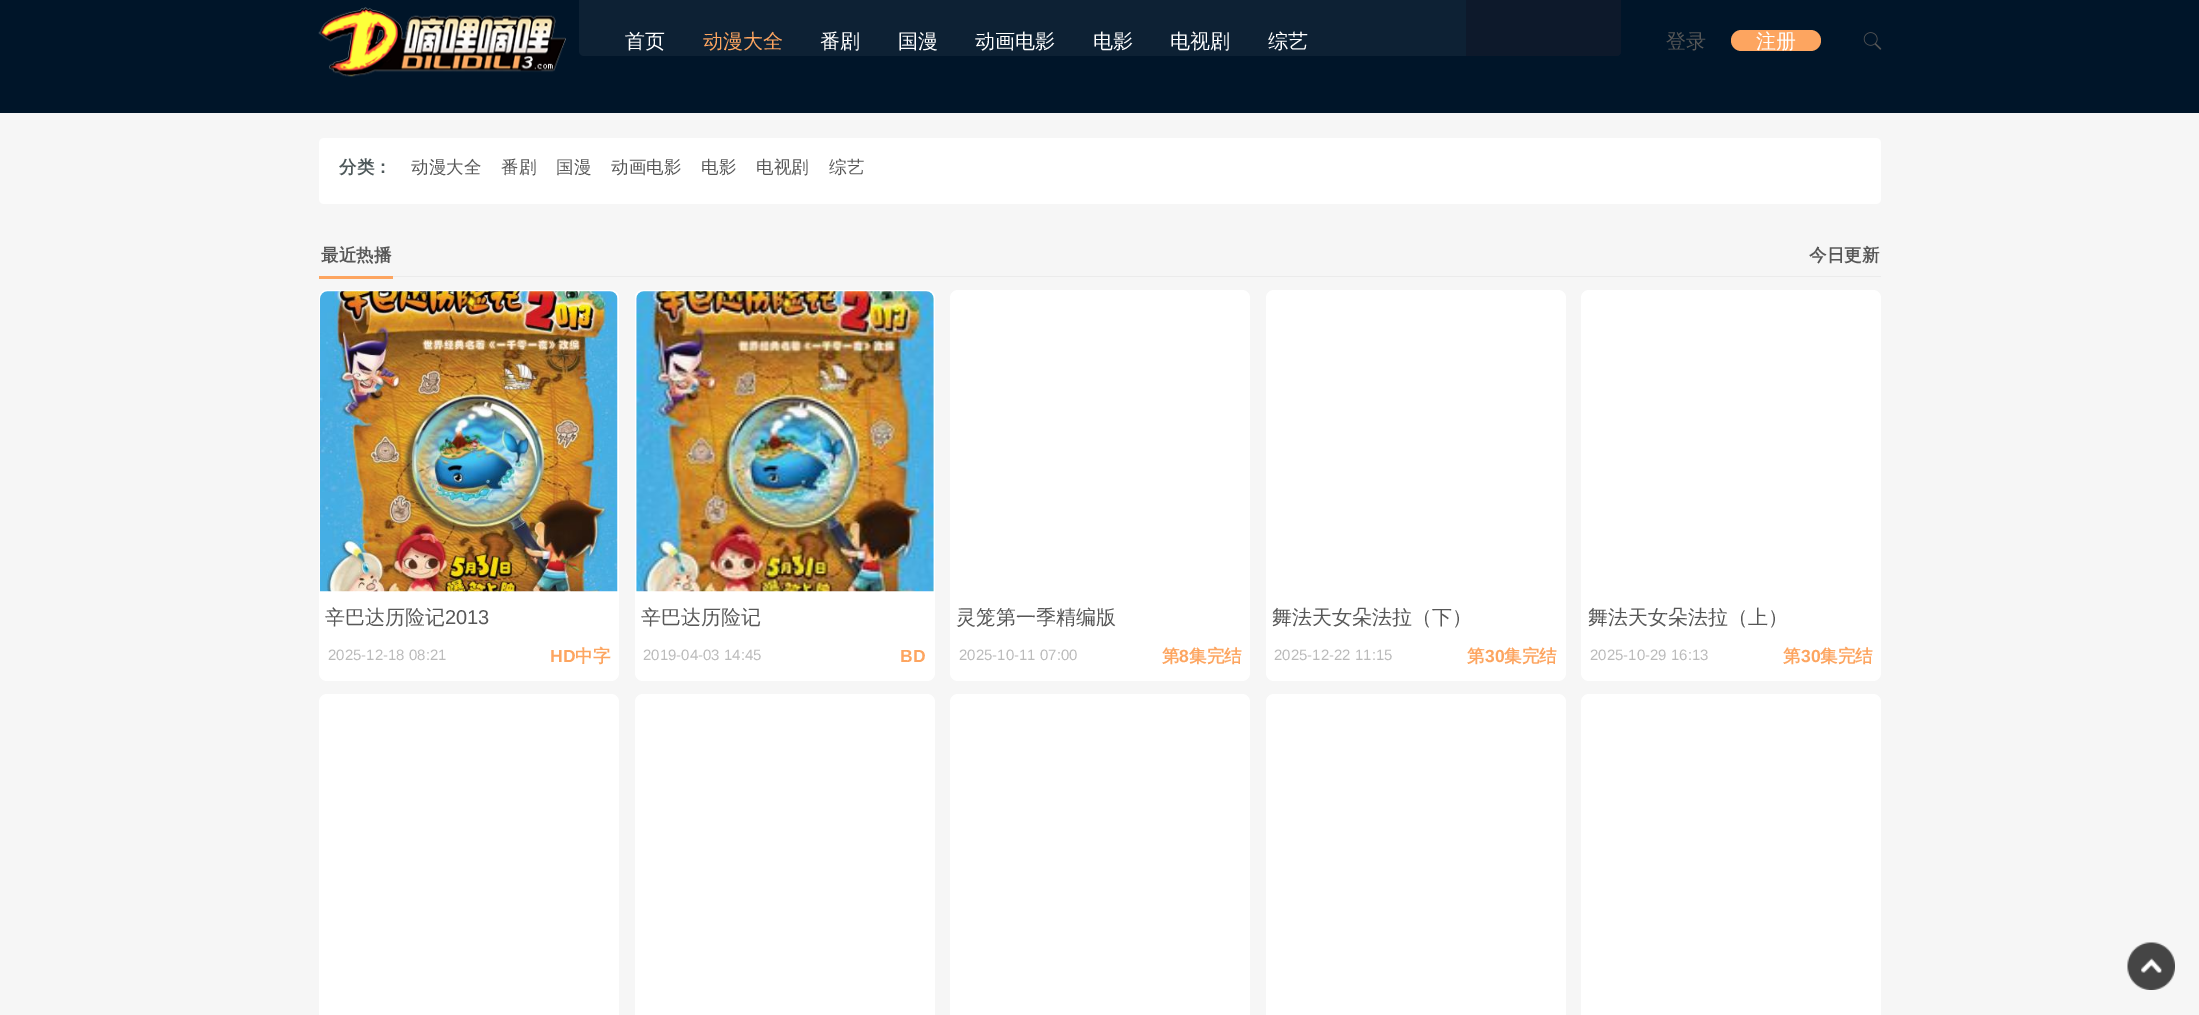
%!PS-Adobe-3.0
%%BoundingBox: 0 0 2199 1015
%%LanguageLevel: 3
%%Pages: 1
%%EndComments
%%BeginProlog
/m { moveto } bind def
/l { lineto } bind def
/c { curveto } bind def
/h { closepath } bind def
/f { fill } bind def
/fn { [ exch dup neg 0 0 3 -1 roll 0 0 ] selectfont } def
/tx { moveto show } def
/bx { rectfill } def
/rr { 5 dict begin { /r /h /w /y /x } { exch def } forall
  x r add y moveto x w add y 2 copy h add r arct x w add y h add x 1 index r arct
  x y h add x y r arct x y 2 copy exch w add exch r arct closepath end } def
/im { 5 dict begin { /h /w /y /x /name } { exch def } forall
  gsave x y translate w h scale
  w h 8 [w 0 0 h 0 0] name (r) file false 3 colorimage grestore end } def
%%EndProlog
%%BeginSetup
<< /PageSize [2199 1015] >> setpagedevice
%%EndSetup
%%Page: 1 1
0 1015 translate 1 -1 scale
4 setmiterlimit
0.965 setgray
0 0 2199 1015 bx
0 0.082 0.161 setrgbcolor
0 0 2199 113 bx
0.051 0.129 0.204 setrgbcolor
579 -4 1042 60 5 rr f
0.051 0.098 0.169 setrgbcolor
1466 -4 m 1616 -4 l 1619 -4 1621 -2 1621 1 c 1621 51 l 1621 54 1619 56 1616 56 c 1466 56 l h f
(image0.raw) 318 7 248 70 im
/WenQuanYiZenHei-Medium 20 fn
1 setgray
(首页) 625 48 tx
0.992 0.647 0.376 setrgbcolor
(动漫大全) 703 48 tx
1 setgray
(番剧) 820 48 tx
(国漫) 898 48 tx
(动画电影) 975 48 tx
(电影) 1093 48 tx
(电视剧) 1170 48 tx
(综艺) 1268 48 tx
0.341 setgray
(登录) 1666 48 tx
0.992 0.647 0.376 setrgbcolor
1731 30 90 21 10.5 rr f
1 setgray
(注册) 1756 48 tx
(image1.raw) 1863 32 19 18 im
319 138 1562 66 5 rr f
/WenQuanYiZenHei-Bold 17.5 fn
0.306 0.345 0.353 setrgbcolor
(分类：) 339 173 tx
/WenQuanYiZenHei-Medium 17.5 fn
0.341 setgray
(动漫大全) 411 173 tx
(番剧) 501 173 tx
(国漫) 556 173 tx
(动画电影) 611 173 tx
(电影) 701 173 tx
(电视剧) 756 173 tx
(综艺) 829 173 tx
0.922 setgray
393 276 1488 1 bx
0.992 0.647 0.376 setrgbcolor
319 276 74 3 bx
/WenQuanYiZenHei-Bold 17.5 fn
0.341 setgray
(最近热播) 321 261 tx
(今日更新) 1809 261 tx
1 setgray
319 290 300 391 8 rr f
(image2.raw) 320 291 298 301 im
/WenQuanYiZenHei-Medium 20 fn
0.341 setgray
(辛巴达历险记) 325 624 tx
/LiberationSans-Regular 20 fn
(2013) 445 624 tx
/LiberationSans-Regular 15 fn
0.733 setgray
(2025-12-18 08:21) 328 660 tx
/LiberationSans-Bold 17.5 fn
0.992 0.647 0.376 setrgbcolor
(HD) 550 662 tx
/WenQuanYiZenHei-Bold 17.5 fn
(中字) 575 662 tx
1 setgray
635 290 300 391 8 rr f
(image3.raw) 636 291 298 301 im
/WenQuanYiZenHei-Medium 20 fn
0.341 setgray
(辛巴达历险记) 641 624 tx
/LiberationSans-Regular 15 fn
0.733 setgray
(2019-04-03 14:45) 643 660 tx
/LiberationSans-Bold 17.5 fn
0.992 0.647 0.376 setrgbcolor
(BD) 900 662 tx
1 setgray
950 290 300 391 8 rr f
/WenQuanYiZenHei-Medium 20 fn
0.341 setgray
(灵笼第一季精编版) 956 624 tx
/LiberationSans-Regular 15 fn
0.733 setgray
(2025-10-11 07:00) 959 660 tx
/WenQuanYiZenHei-Bold 17.5 fn
0.992 0.647 0.376 setrgbcolor
(第) 1162 662 tx
/LiberationSans-Bold 17.5 fn
(8) 1179 662 tx
/WenQuanYiZenHei-Bold 17.5 fn
(集完结) 1189 662 tx
1 setgray
1266 290 300 391 8 rr f
/WenQuanYiZenHei-Medium 20 fn
0.341 setgray
(舞法天女朵法拉（下）) 1272 624 tx
/LiberationSans-Regular 15 fn
0.733 setgray
(2025-12-22 11:15) 1274 660 tx
/WenQuanYiZenHei-Bold 17.5 fn
0.992 0.647 0.376 setrgbcolor
(第) 1467 662 tx
/LiberationSans-Bold 17.5 fn
(30) 1485 662 tx
/WenQuanYiZenHei-Bold 17.5 fn
(集完结) 1504 662 tx
1 setgray
1581 290 300 391 8 rr f
/WenQuanYiZenHei-Medium 20 fn
0.341 setgray
(舞法天女朵法拉（上）) 1588 624 tx
/LiberationSans-Regular 15 fn
0.733 setgray
(2025-10-29 16:13) 1590 660 tx
/WenQuanYiZenHei-Bold 17.5 fn
0.992 0.647 0.376 setrgbcolor
(第) 1783 662 tx
/LiberationSans-Bold 17.5 fn
(30) 1801 662 tx
/WenQuanYiZenHei-Bold 17.5 fn
(集完结) 1820 662 tx
1 setgray
319 694 300 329 8 rr f
635 694 300 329 8 rr f
950 694 300 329 8 rr f
1266 694 300 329 8 rr f
1581 694 300 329 8 rr f
(image4.raw) 2127 942 48 48 im
showpage
%%EOF
